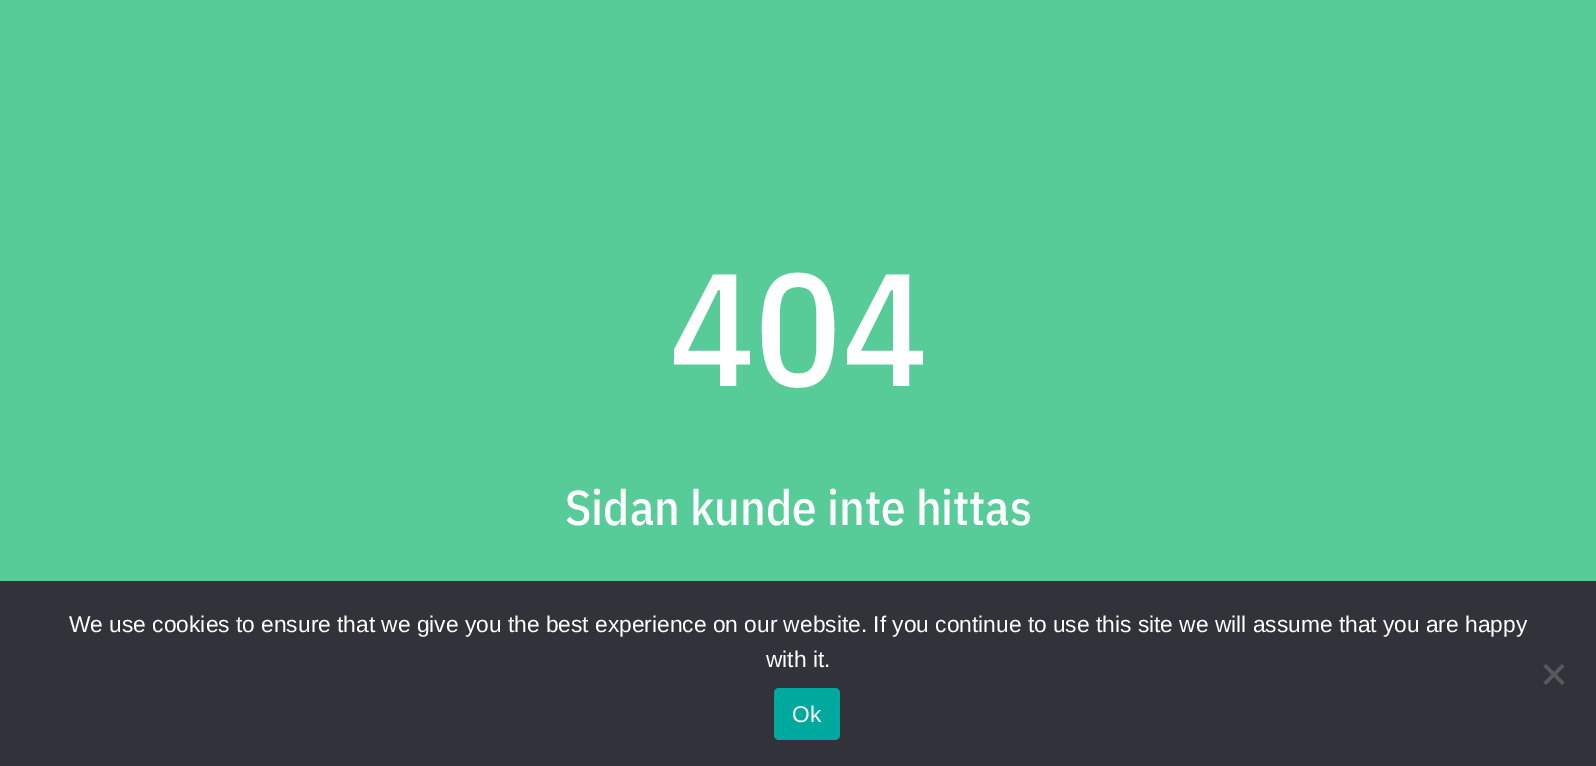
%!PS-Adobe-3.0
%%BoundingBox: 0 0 1596 766
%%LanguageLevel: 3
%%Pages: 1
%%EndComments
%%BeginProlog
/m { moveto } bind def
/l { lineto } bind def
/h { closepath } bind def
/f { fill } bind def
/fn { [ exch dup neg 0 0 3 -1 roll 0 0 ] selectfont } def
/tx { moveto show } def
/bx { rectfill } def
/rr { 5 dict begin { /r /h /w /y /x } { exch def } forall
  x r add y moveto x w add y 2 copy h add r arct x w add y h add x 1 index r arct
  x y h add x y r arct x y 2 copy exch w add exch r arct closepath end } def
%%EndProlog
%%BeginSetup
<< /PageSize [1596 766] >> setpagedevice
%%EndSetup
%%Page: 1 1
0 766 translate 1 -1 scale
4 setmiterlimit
0.341 0.8 0.6 setrgbcolor
0 0 1596 766 bx
/IBMPlexSansCondensed-Medium 160 fn
1 setgray
(404) 669 386 tx
/IBMPlexSansCondensed-Medium 49 fn
(Sidan kunde inte hittas) 565 525 tx
0.196 0.196 0.227 setrgbcolor
0 581 1596 185 bx
/LiberationSans-Regular 22.75 fn
1 setgray
(We use cookies to ensure that we give you the best experience on our website. If you continue to use this site we will assume that you are happy) 69 632 tx
(with it.) 766 667 tx
0.349 0.349 0.365 setrgbcolor
1562 664 m 1564.5 666.5 l 1546 685 l 1543.5 682.5 l h f
1543.5 666.5 m 1546 664 l 1564.5 682.5 l 1562 685 l h f
0 0.663 0.616 setrgbcolor
774 688 66 52 5 rr f
1 setgray
(Ok) 792 722 tx
showpage
%%EOF
